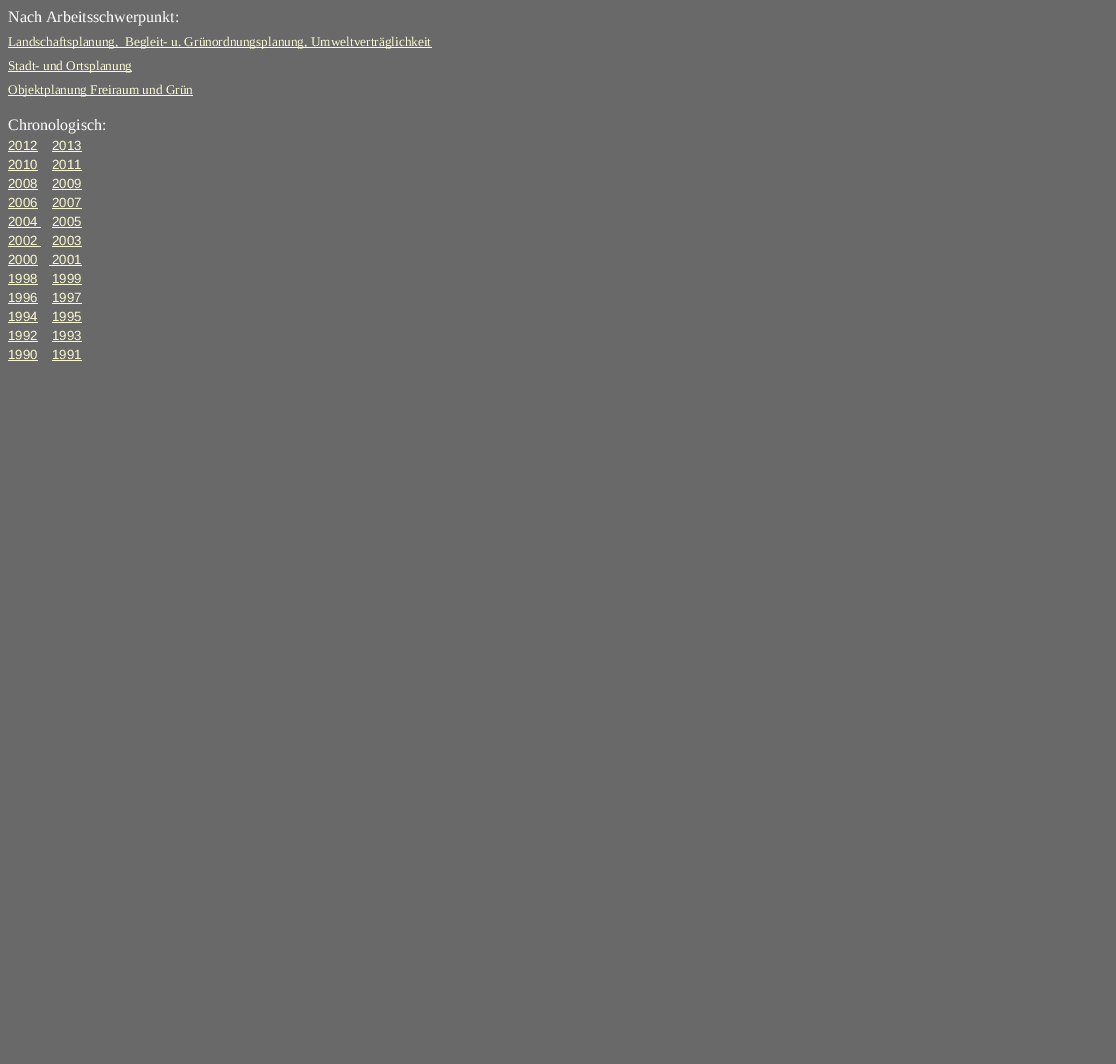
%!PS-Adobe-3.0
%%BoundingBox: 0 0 1116 1064
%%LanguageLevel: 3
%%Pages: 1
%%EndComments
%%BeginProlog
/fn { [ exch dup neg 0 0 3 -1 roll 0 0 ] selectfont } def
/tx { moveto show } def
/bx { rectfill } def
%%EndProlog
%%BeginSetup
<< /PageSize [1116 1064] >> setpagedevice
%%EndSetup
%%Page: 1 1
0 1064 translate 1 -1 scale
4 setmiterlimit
0.412 setgray
0 0 1116 1064 bx
/LiberationSerif-Regular 16 fn
1 setgray
(Nach Arbeitsschwerpunkt:) 8 22 tx
0.98 0.98 0.824 setrgbcolor
8 47 424 1 bx
/LiberationSerif-Regular 13.3 fn
(Landschaftsplanung,  Begleit- u. Grünordnungsplanung, Umweltverträglichkeit) 8 46 tx
8 71 124 1 bx
(Stadt- und Ortsplanung) 8 70 tx
8 95 185 1 bx
(Objektplanung Freiraum und Grün) 8 94 tx
/LiberationSerif-Regular 16 fn
1 setgray
(Chronologisch:) 8 130 tx
/LiberationSans-Regular 13.3 fn
0.98 0.98 0.824 setrgbcolor
(2012) 8 150 tx
8 151 30 1 bx
(2013) 52 150 tx
52 151 30 1 bx
(2010) 8 169 tx
8 170 30 1 bx
(2011) 52 169 tx
52 170 30 1 bx
(2008) 8 188 tx
8 189 30 1 bx
(2009) 52 188 tx
52 189 30 1 bx
(2006) 8 207 tx
8 208 30 1 bx
(2007) 52 207 tx
52 208 30 1 bx
(2004) 8 226 tx
8 227 33 1 bx
(2005) 52 226 tx
52 227 30 1 bx
(2002) 8 245 tx
8 246 33 1 bx
(2003) 52 245 tx
52 246 30 1 bx
(2000) 8 264 tx
8 265 30 1 bx
(2001) 52 264 tx
49 265 33 1 bx
(1998) 8 283 tx
8 284 30 1 bx
(1999) 52 283 tx
52 284 30 1 bx
(1996) 8 302 tx
8 303 30 1 bx
(1997) 52 302 tx
52 303 30 1 bx
(1994) 8 321 tx
8 322 30 1 bx
(1995) 52 321 tx
52 322 30 1 bx
(1992) 8 340 tx
8 341 30 1 bx
(1993) 52 340 tx
52 341 30 1 bx
(1990) 8 359 tx
8 360 30 1 bx
(1991) 52 359 tx
52 360 30 1 bx
showpage
%%EOF
